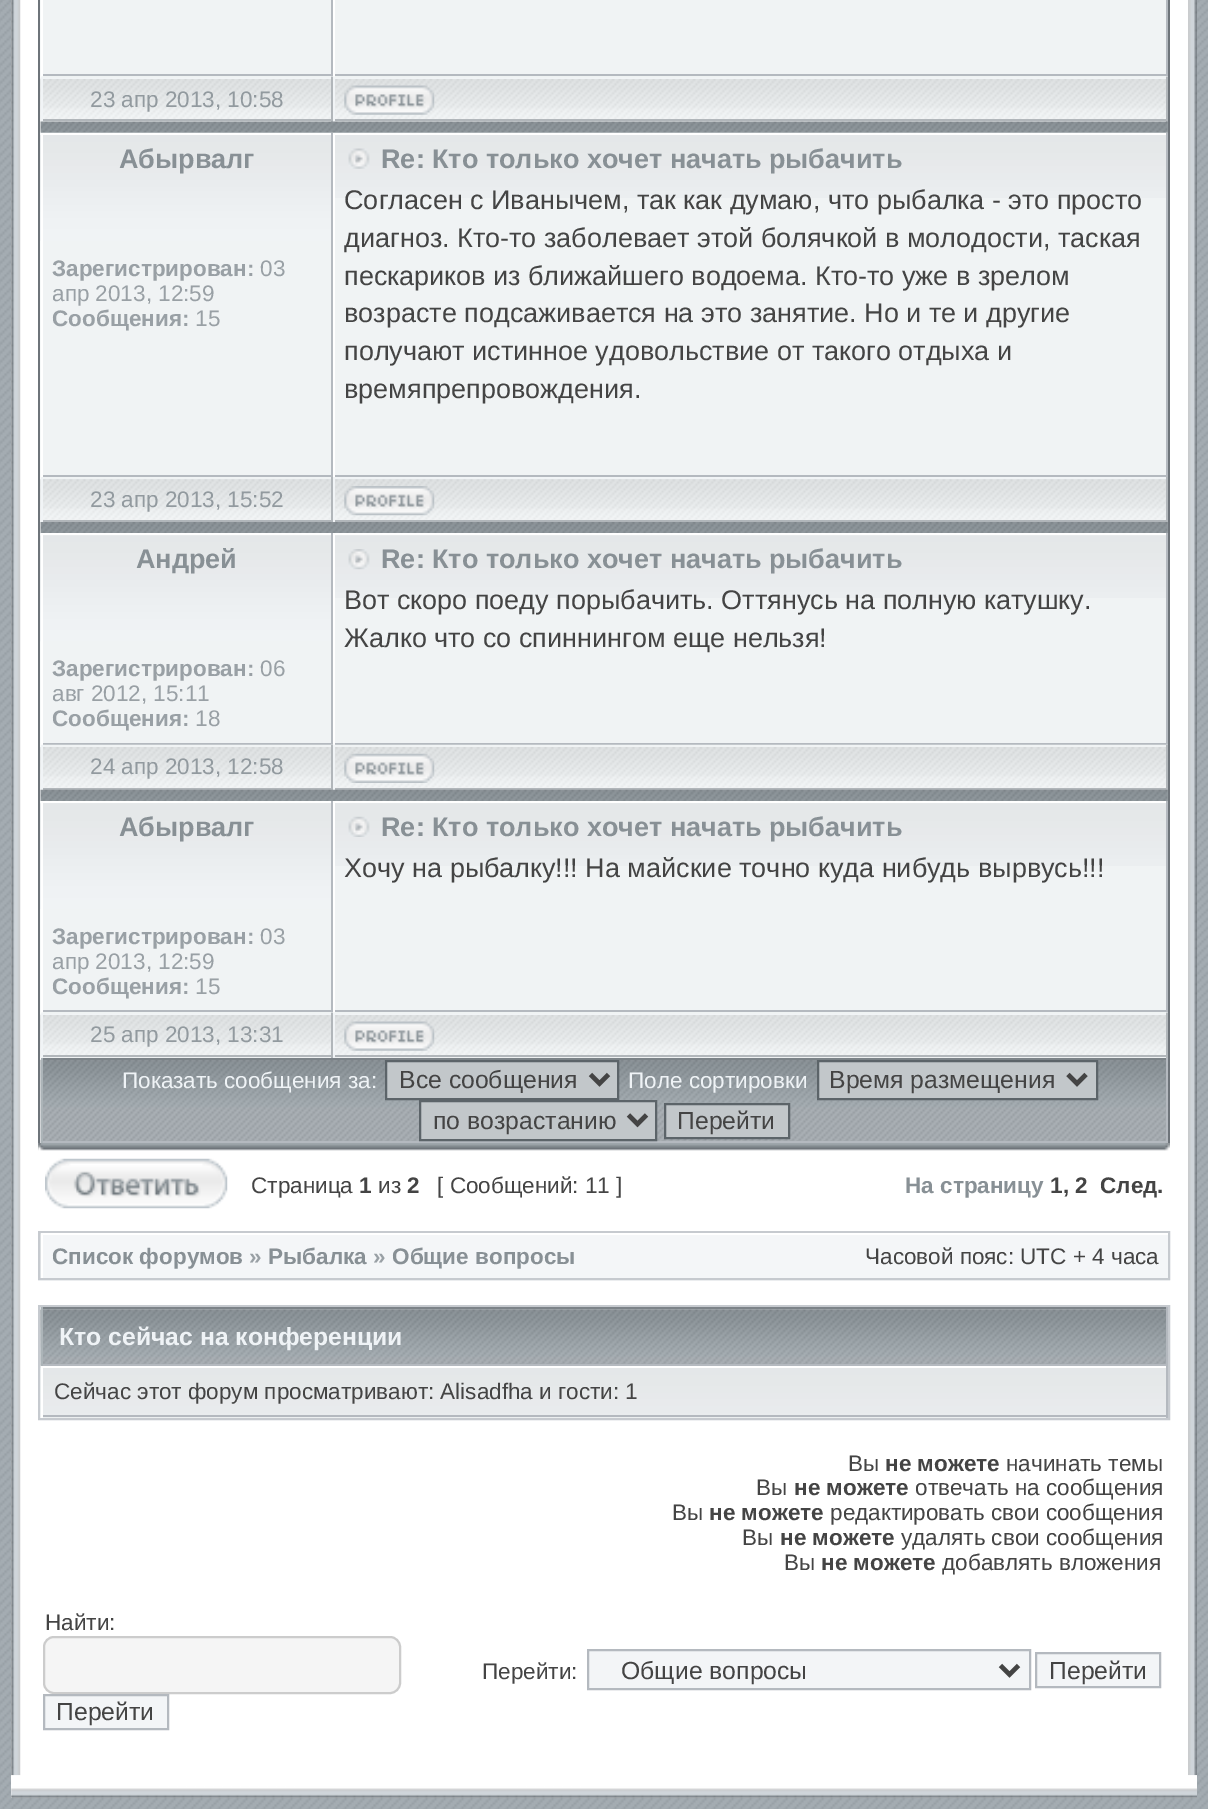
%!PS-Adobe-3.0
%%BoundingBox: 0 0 1208 1809
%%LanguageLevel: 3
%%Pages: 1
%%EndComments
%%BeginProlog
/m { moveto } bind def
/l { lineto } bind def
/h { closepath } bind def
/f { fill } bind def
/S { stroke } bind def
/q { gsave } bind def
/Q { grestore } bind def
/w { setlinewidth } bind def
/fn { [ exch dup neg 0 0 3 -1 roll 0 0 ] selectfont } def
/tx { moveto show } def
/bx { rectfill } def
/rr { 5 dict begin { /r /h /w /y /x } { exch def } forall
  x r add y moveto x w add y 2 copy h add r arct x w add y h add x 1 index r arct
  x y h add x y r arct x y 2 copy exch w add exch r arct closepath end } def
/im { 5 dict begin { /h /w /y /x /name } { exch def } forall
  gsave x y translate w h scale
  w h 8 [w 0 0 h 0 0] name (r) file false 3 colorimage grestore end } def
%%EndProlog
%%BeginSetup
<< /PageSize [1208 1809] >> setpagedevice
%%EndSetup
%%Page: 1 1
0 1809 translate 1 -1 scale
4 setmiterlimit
1 setgray
0 0 1208 1809 bx
(image0.raw) 0 0 1208 1809 im
11 0 1186 1798 bx
(image1.raw) 11 0 10 1776 im
(image2.raw) 38 1143 1126 8 im
0.431 0.455 0.478 setrgbcolor
1168 0 2 1143 bx
38 0 2 1143 bx
0.941 0.953 0.957 setrgbcolor
43 0 288 77 bx
(image3.raw) 40 0 1 77 im
0.706 0.725 0.749 setrgbcolor
331 0 2 77 bx
41 74 292 2 bx
1 setgray
41 74 2 3 bx
0.941 0.953 0.957 setrgbcolor
335 0 831 77 bx
0.706 0.725 0.749 setrgbcolor
1166 0 2 77 bx
333 74 835 2 bx
1 setgray
333 74 2 3 bx
(image4.raw) 40 76 293 46 im
0.945 0.957 0.965 setrgbcolor
41 78 292 1 bx
0.694 0.714 0.729 setrgbcolor
331 77 2 45 bx
41 119 292 2 bx
0.945 0.957 0.965 setrgbcolor
41 77 2 45 bx
/LiberationSans-Regular 22.5 fn
0.573 0.604 0.624 setrgbcolor
(23 апр 2013, 10:58) 90 107 tx
(image5.raw) 333 76 835 46 im
0.945 0.957 0.965 setrgbcolor
333 78 835 1 bx
0.694 0.714 0.729 setrgbcolor
1166 77 2 45 bx
333 119 835 2 bx
0.945 0.957 0.965 setrgbcolor
333 77 2 45 bx
(image6.raw) 344 85 91 30 im
0.647 0.678 0.698 setrgbcolor
41 122 1127 11 bx
(image7.raw) 40 121 1128 12 im
(image8.raw) 40 132 293 345 im
1 setgray
41 133 292 2 bx
0.706 0.725 0.749 setrgbcolor
331 133 2 344 bx
41 475 292 2 bx
1 setgray
41 133 2 344 bx
/LiberationSans-Bold 27 fn
0.533 0.565 0.584 setrgbcolor
(Абырвалг) 119 168 tx
/LiberationSans-Bold 22.5 fn
0.6 0.627 0.647 setrgbcolor
(Зарегистрирован:) 52 276 tx
/LiberationSans-Regular 22.5 fn
(03) 260 276 tx
(апр 2013, 12:59) 52 301 tx
/LiberationSans-Bold 22.5 fn
(Сообщения:) 52 326 tx
/LiberationSans-Regular 22.5 fn
(15) 195 326 tx
0.941 0.953 0.957 setrgbcolor
335 198 831 277 bx
(image9.raw) 333 132 835 66 im
1 setgray
333 133 835 2 bx
0.706 0.725 0.749 setrgbcolor
1166 133 2 344 bx
333 475 835 2 bx
1 setgray
333 133 2 344 bx
(image10.raw) 348 148 22 21 im
/LiberationSans-Bold 27 fn
0.533 0.565 0.584 setrgbcolor
(Re: Кто только хочет начать рыбачить) 381 168 tx
/LiberationSans-Regular 27 fn
0.267 setgray
(Согласен с Иванычем, так как думаю, что рыбалка - это просто) 344 209 tx
(диагноз. Кто-то заболевает этой болячкой в молодости, таская) 344 247 tx
(пескариков из ближайшего водоема. Кто-то уже в зрелом) 344 285 tx
(возрасте подсаживается на это занятие. Но и те и другие) 344 322 tx
(получают истинное удовольствие от такого отдыха и) 344 360 tx
(времяпрепровождения.) 344 398 tx
(image11.raw) 40 477 291 45 im
0.945 0.957 0.965 setrgbcolor
331 477 837 2 bx
0.694 0.714 0.729 setrgbcolor
331 477 2 45 bx
41 520 292 2 bx
0.945 0.957 0.965 setrgbcolor
41 477 2 45 bx
/LiberationSans-Regular 22.5 fn
0.573 0.604 0.624 setrgbcolor
(23 апр 2013, 15:52) 90 507 tx
(image12.raw) 335 479 831 41 im
0.694 0.714 0.729 setrgbcolor
1166 477 2 45 bx
333 520 835 2 bx
0.945 0.957 0.965 setrgbcolor
333 477 2 45 bx
(image13.raw) 344 486 91 30 im
(image14.raw) 40 522 1128 12 im
(image15.raw) 40 534 291 211 im
1 setgray
41 533 292 2 bx
0.706 0.725 0.749 setrgbcolor
331 533 2 212 bx
41 743 292 2 bx
1 setgray
41 533 2 212 bx
/LiberationSans-Bold 27 fn
0.533 0.565 0.584 setrgbcolor
(Андрей) 136 568 tx
/LiberationSans-Bold 22.5 fn
0.6 0.627 0.647 setrgbcolor
(Зарегистрирован:) 52 676 tx
/LiberationSans-Regular 22.5 fn
(06) 260 676 tx
(авг 2012, 15:11) 52 701 tx
/LiberationSans-Bold 22.5 fn
(Сообщения:) 52 726 tx
/LiberationSans-Regular 22.5 fn
(18) 195 726 tx
0.941 0.953 0.957 setrgbcolor
335 598 831 145 bx
(image16.raw) 335 535 831 63 im
1 setgray
333 533 835 1 bx
0.706 0.725 0.749 setrgbcolor
1166 533 2 212 bx
333 743 835 2 bx
1 setgray
333 743 2 2 bx
(image17.raw) 348 549 22 21 im
/LiberationSans-Bold 27 fn
0.533 0.565 0.584 setrgbcolor
(Re: Кто только хочет начать рыбачить) 381 568 tx
/LiberationSans-Regular 27 fn
0.267 setgray
(Вот скоро поеду порыбачить. Оттянусь на полную катушку.) 344 609 tx
(Жалко что со спиннингом еще нельзя!) 344 647 tx
(image18.raw) 40 744 293 46 im
0.694 0.714 0.729 setrgbcolor
331 745 2 45 bx
41 788 292 2 bx
0.945 0.957 0.965 setrgbcolor
41 745 2 45 bx
/LiberationSans-Regular 22.5 fn
0.573 0.604 0.624 setrgbcolor
(24 апр 2013, 12:58) 90 774 tx
(image19.raw) 333 744 835 44 im
0.694 0.714 0.729 setrgbcolor
1166 745 2 45 bx
333 788 835 2 bx
0.945 0.957 0.965 setrgbcolor
333 745 2 45 bx
(image20.raw) 344 753 91 30 im
(image21.raw) 40 789 1128 12 im
(image22.raw) 40 801 291 212 im
1 setgray
41 801 292 2 bx
0.706 0.725 0.749 setrgbcolor
331 801 2 212 bx
41 1010 292 2 bx
1 setgray
41 801 2 212 bx
/LiberationSans-Bold 27 fn
0.533 0.565 0.584 setrgbcolor
(Абырвалг) 119 836 tx
/LiberationSans-Bold 22.5 fn
0.6 0.627 0.647 setrgbcolor
(Зарегистрирован:) 52 944 tx
/LiberationSans-Regular 22.5 fn
(03) 260 944 tx
(апр 2013, 12:59) 52 969 tx
/LiberationSans-Bold 22.5 fn
(Сообщения:) 52 994 tx
/LiberationSans-Regular 22.5 fn
(15) 195 994 tx
0.941 0.953 0.957 setrgbcolor
335 866 831 147 bx
(image23.raw) 335 803 831 63 im
0.706 0.725 0.749 setrgbcolor
1166 801 2 212 bx
333 1010 835 2 bx
1 setgray
333 1010 2 3 bx
(image24.raw) 348 816 22 21 im
/LiberationSans-Bold 27 fn
0.533 0.565 0.584 setrgbcolor
(Re: Кто только хочет начать рыбачить) 381 836 tx
/LiberationSans-Regular 27 fn
0.267 setgray
(Хочу на рыбалку!!! На майские точно куда нибудь вырвусь!!!) 344 877 tx
(image25.raw) 40 1012 293 46 im
0.945 0.957 0.965 setrgbcolor
41 1014 292 1 bx
0.694 0.714 0.729 setrgbcolor
331 1013 2 45 bx
41 1055 292 2 bx
0.945 0.957 0.965 setrgbcolor
41 1013 2 45 bx
/LiberationSans-Regular 22.5 fn
0.573 0.604 0.624 setrgbcolor
(25 апр 2013, 13:31) 90 1042 tx
(image26.raw) 333 1012 835 46 im
0.945 0.957 0.965 setrgbcolor
333 1014 835 1 bx
0.694 0.714 0.729 setrgbcolor
1166 1013 2 45 bx
333 1055 835 2 bx
0.945 0.957 0.965 setrgbcolor
333 1013 2 45 bx
(image6.raw) 344 1021 91 30 im
(image27.raw) 40 1059 1126 84 im
0.486 0.514 0.533 setrgbcolor
41 1058 1127 2 bx
0.706 0.725 0.749 setrgbcolor
1166 1058 2 85 bx
41 1141 1127 2 bx
0.675 0.706 0.722 setrgbcolor
41 1058 2 85 bx
0.937 0.953 0.965 setrgbcolor
(Показать сообщения за:) 122 1088 tx
0.761 0.78 0.792 setrgbcolor
386 1061 m 618 1061 l 618 1099 l 386 1099 l h q f Q
0.361 0.392 0.412 setrgbcolor
2 w
S
0.267 setgray
4.5 w
590.5 1074.5 m 599.5 1083.5 l 608.5 1074.5 l S
/LiberationSans-Regular 24.75 fn
(Все сообщения) 399 1088 tx
/LiberationSans-Regular 22.5 fn
0.937 0.953 0.965 setrgbcolor
(Поле сортировки) 628 1088 tx
0.761 0.78 0.792 setrgbcolor
818 1061 m 1097 1061 l 1097 1099 l 818 1099 l h q f Q
0.361 0.392 0.412 setrgbcolor
2 w
S
0.267 setgray
4.5 w
1068 1074.5 m 1077 1083.5 l 1086 1074.5 l S
/LiberationSans-Regular 24.75 fn
(Время размещения) 829 1088 tx
0.761 0.78 0.792 setrgbcolor
420 1101 m 656 1101 l 656 1140 l 420 1140 l h q f Q
0.361 0.392 0.412 setrgbcolor
2 w
S
0.267 setgray
4.5 w
628.5 1115 m 637.5 1124 l 646.5 1115 l S
(по возрастанию) 433 1129 tx
0.761 0.78 0.792 setrgbcolor
665 1104 m 789 1104 l 789 1138 l 665 1138 l h q f Q
0.361 0.392 0.412 setrgbcolor
2 w
S
0.267 setgray
(Перейти) 677 1129 tx
(image28.raw) 38 1143 6 8 im
(image29.raw) 1164 1143 6 8 im
(image30.raw) 45 1158 183 51 im
/LiberationSans-Regular 22.5 fn
(Страница) 251 1193 tx
/LiberationSans-Bold 22.5 fn
(1) 359 1193 tx
/LiberationSans-Regular 22.5 fn
(из) 378 1193 tx
/LiberationSans-Bold 22.5 fn
(2) 407 1193 tx
/LiberationSans-Regular 22.5 fn
([ Сообщений: 11 ]) 437 1193 tx
/LiberationSans-Bold 22.5 fn
0.533 0.565 0.584 setrgbcolor
(На страницу) 905 1193 tx
0.267 setgray
(1, 2  След.) 1050 1193 tx
(image31.raw) 38 1233 1132 48 im
0.776 0.792 0.812 setrgbcolor
39 1232 1130 47 rectstroke
0.957 0.965 0.973 setrgbcolor
43 1235 1125 43 bx
1 setgray
41 1233 1127 2 bx
41 1233 2 45 bx
0.533 0.565 0.584 setrgbcolor
(Список форумов) 52 1264 tx
0.6 0.627 0.647 setrgbcolor
(») 249 1264 tx
0.533 0.565 0.584 setrgbcolor
(Рыбалка) 268 1264 tx
0.6 0.627 0.647 setrgbcolor
(») 373 1264 tx
0.533 0.565 0.584 setrgbcolor
(Общие вопросы) 392 1264 tx
/LiberationSans-Regular 22.5 fn
0.267 setgray
(Часовой пояс: UTC + 4 часа) 865 1264 tx
0.941 0.953 0.957 setrgbcolor
40 1307 1 111 bx
(image32.raw) 40 1307 1 63 im
0.776 0.792 0.812 setrgbcolor
39 1306 1130 113 rectstroke
0.663 0.686 0.706 setrgbcolor
43 1309 1123 1 bx
(image33.raw) 40 1309 1126 57 im
0.486 0.514 0.533 setrgbcolor
41 1307 1127 2 bx
0.706 0.725 0.749 setrgbcolor
1166 1307 2 111 bx
41 1364 1127 2 bx
0.675 0.706 0.722 setrgbcolor
41 1307 2 59 bx
/LiberationSans-Bold 24.75 fn
0.937 0.953 0.965 setrgbcolor
(Кто сейчас на конференции) 59 1345 tx
0.941 0.953 0.957 setrgbcolor
43 1417 1123 1 bx
(image34.raw) 40 1368 1126 50 im
0.706 0.725 0.749 setrgbcolor
41 1415 1127 2 bx
1 setgray
41 1366 2 52 bx
/LiberationSans-Regular 22.5 fn
0.267 setgray
(Сейчас этот форум просматривают: Alisadfha и гости: 1) 54 1399 tx
(Вы) 848 1471 tx
/LiberationSans-Bold 22.5 fn
(не можете) 885 1471 tx
/LiberationSans-Regular 22.5 fn
(начинать темы) 1006 1471 tx
(Вы) 756 1495 tx
/LiberationSans-Bold 22.5 fn
(не можете) 794 1495 tx
/LiberationSans-Regular 22.5 fn
(отвечать на сообщения) 915 1495 tx
(Вы) 672 1520 tx
/LiberationSans-Bold 22.5 fn
(не можете) 709 1520 tx
/LiberationSans-Regular 22.5 fn
(редактировать свои сообщения) 830 1520 tx
(Вы) 742 1545 tx
/LiberationSans-Bold 22.5 fn
(не можете) 780 1545 tx
/LiberationSans-Regular 22.5 fn
(удалять свои сообщения) 901 1545 tx
(Вы) 784 1570 tx
/LiberationSans-Bold 22.5 fn
(не можете) 821 1570 tx
/LiberationSans-Regular 22.5 fn
(добавлять вложения) 942 1570 tx
(Найти:) 45 1630 tx
0.961 setgray
44 1637 356 56 10 rr q f Q
0.8 setgray
S
0.953 0.961 0.969 setrgbcolor
44 1695 m 168 1695 l 168 1729 l 44 1729 l h q f Q
0.706 0.725 0.749 setrgbcolor
S
/LiberationSans-Regular 24.75 fn
0.267 setgray
(Перейти) 56 1720 tx
/LiberationSans-Regular 22.5 fn
(Перейти:) 482 1679 tx
0.953 0.961 0.969 setrgbcolor
588 1650 m 1030 1650 l 1030 1689 l 588 1689 l h q f Q
0.706 0.725 0.749 setrgbcolor
S
0.267 setgray
4.5 w
1000.5 1665.5 m 1009.5 1674.5 l 1018.5 1665.5 l S
/LiberationSans-Regular 24.75 fn
(Общие вопросы) 621 1679 tx
0.953 0.961 0.969 setrgbcolor
1036 1653 m 1160 1653 l 1160 1687 l 1036 1687 l h q f Q
0.706 0.725 0.749 setrgbcolor
2 w
S
0.267 setgray
(Перейти) 1049 1679 tx
(image35.raw) 1188 0 9 1776 im
(image36.raw) 11 1775 1186 23 im
showpage
%%EOF
